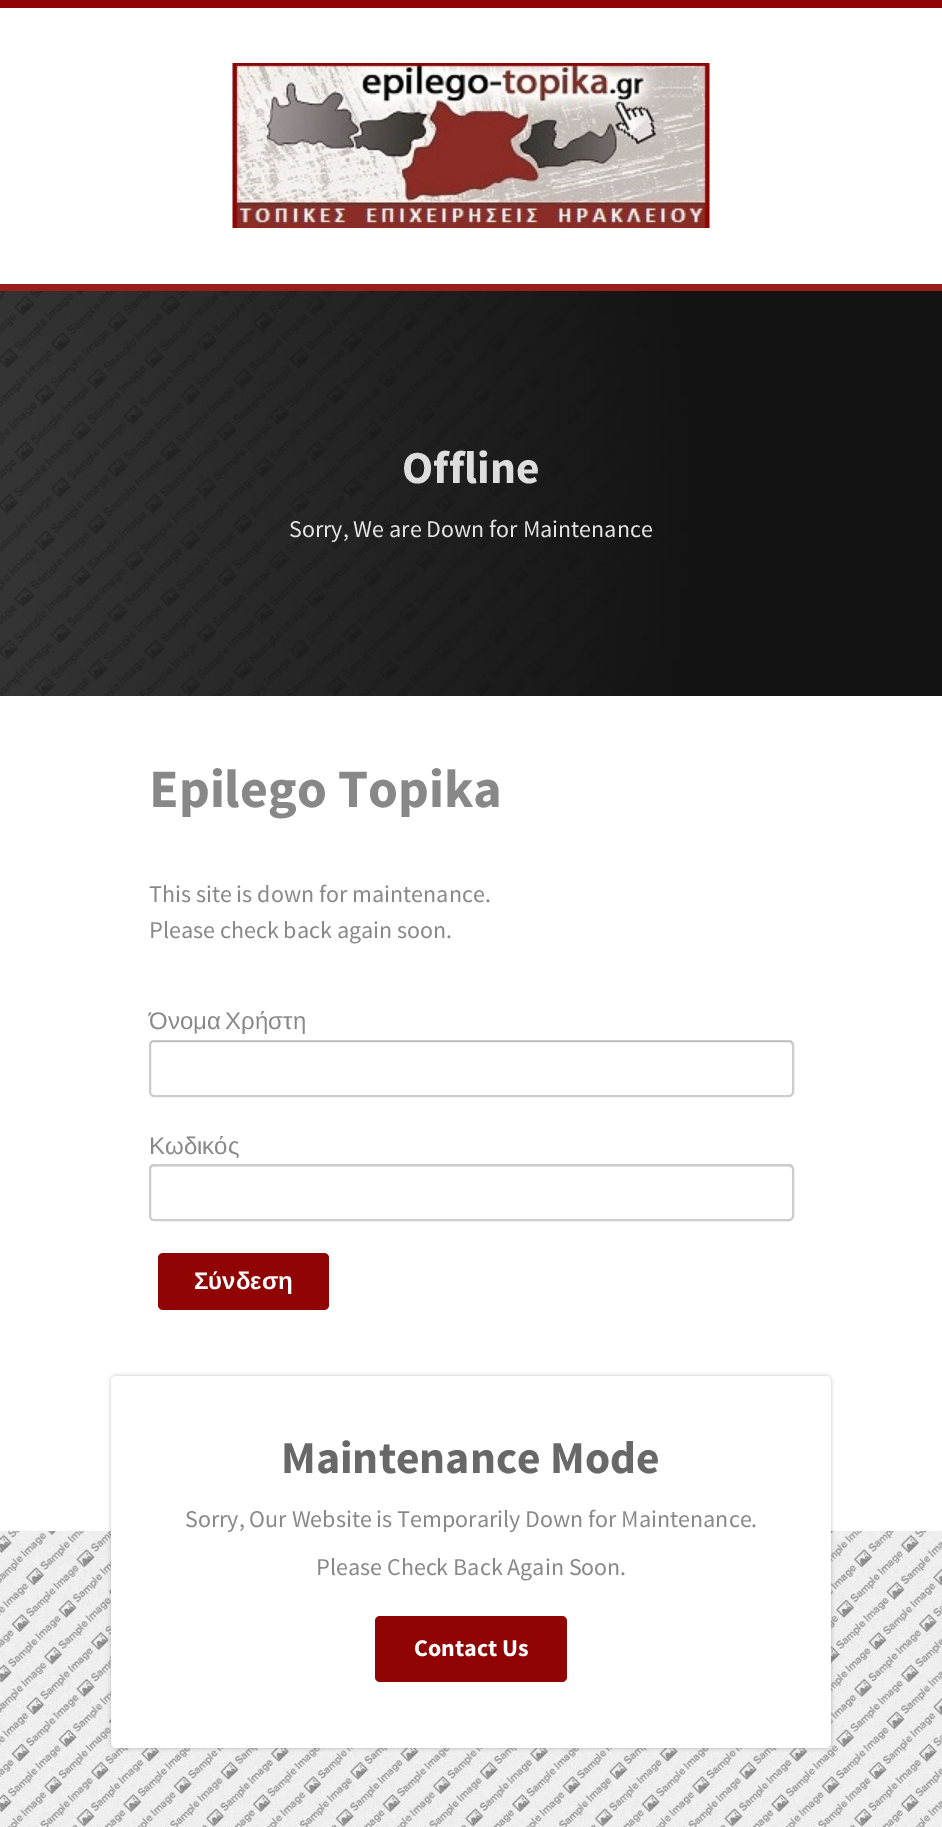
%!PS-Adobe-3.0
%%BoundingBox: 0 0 942 1827
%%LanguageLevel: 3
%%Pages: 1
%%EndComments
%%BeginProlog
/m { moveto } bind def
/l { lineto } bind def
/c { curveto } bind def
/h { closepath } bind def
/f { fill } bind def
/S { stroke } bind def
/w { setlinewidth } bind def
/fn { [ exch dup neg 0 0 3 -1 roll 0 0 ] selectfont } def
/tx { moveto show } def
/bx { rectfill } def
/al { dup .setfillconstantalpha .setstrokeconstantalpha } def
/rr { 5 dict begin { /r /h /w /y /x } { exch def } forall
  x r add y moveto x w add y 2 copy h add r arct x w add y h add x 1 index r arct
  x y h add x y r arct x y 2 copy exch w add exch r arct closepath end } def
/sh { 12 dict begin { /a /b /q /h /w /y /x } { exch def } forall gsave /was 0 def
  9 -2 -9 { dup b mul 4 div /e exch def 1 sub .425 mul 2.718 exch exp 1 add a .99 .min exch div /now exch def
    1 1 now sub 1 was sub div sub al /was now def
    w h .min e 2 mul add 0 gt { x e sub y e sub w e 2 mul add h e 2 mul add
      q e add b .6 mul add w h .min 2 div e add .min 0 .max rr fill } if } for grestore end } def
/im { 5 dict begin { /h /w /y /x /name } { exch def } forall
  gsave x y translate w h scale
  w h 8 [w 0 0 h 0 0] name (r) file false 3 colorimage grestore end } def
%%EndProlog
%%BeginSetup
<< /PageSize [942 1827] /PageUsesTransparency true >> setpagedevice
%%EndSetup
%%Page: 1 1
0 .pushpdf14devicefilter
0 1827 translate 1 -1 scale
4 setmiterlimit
1 setgray
0 0 942 1827 bx
0.565 0.016 0.016 setrgbcolor
0 0 942 8 bx
(image0.raw) 232 63 478 165 im
(image1.raw) 0 291 942 405 im
0.608 0.114 0.114 setrgbcolor
0 284 942 7 bx
/SourceSansPro-Bold 45.5 fn
0.867 setgray
(Offline) 402 483 tx
/SourceSansPro-Regular 24 fn
0.894 setgray
(Sorry, We are Down for Maintenance) 289 537 tx
/SourceSansPro-Bold 54 fn
0.533 setgray
(Epilego Topika) 149 807 tx
/SourceSansPro-Regular 24 fn
(This site is down for maintenance.) 149 902 tx
(Please check back again soon.) 149 938 tx
/LiberationSans-Regular 24 fn
149 1029 m -2 0 32 (Όνομα Χρήστη) widthshow
0.925 setgray
153 1042 m 789 1042 l 791 1042 792 1044 792 1046 c 792 1044 792 1041 789 1041 c 153 1041 l 151 1042 l 150 1046 l 150 1044 151 1042 153 1042 c h f
0.2 al
0 setgray
2 w
150 1041 643 55 4 rr S
1 al
0.533 setgray
(Κωδικός) 149 1154 tx
0.925 setgray
153 1167 m 789 1167 l 791 1167 792 1168 792 1170 c 792 1169 l 792 1167 791 1166 789 1166 c 153 1166 l 151 1166 150 1167 150 1169 c 150 1170 l 150 1168 151 1167 153 1167 c h f
0.2 al
0 setgray
150 1165 643 55 4 rr S
1 al
0.565 0.016 0.016 setrgbcolor
158 1253 171 57 5 rr f
/LiberationSans-Bold 24 fn
1 setgray
(Σύνδεση) 194 1289 tx
(image2.raw) 0 1531 942 296 im
0 setgray
111 1376 720 372 5 2 0.25 sh
1 setgray
111 1376 720 372 5 rr f
/SourceSansPro-Bold 45.5 fn
0.408 setgray
(Maintenance Mode) 281 1473 tx
/SourceSansPro-Regular 24 fn
0.533 setgray
(Sorry, Our Website is Temporarily Down for Maintenance.) 185 1527 tx
(Please Check Back Again Soon.) 316 1575 tx
0.565 0.016 0.016 setrgbcolor
375 1616 192 66 5 rr f
/SourceSansPro-Bold 24 fn
1 setgray
(Contact Us) 414 1656 tx
.poppdf14devicefilter showpage
%%EOF
